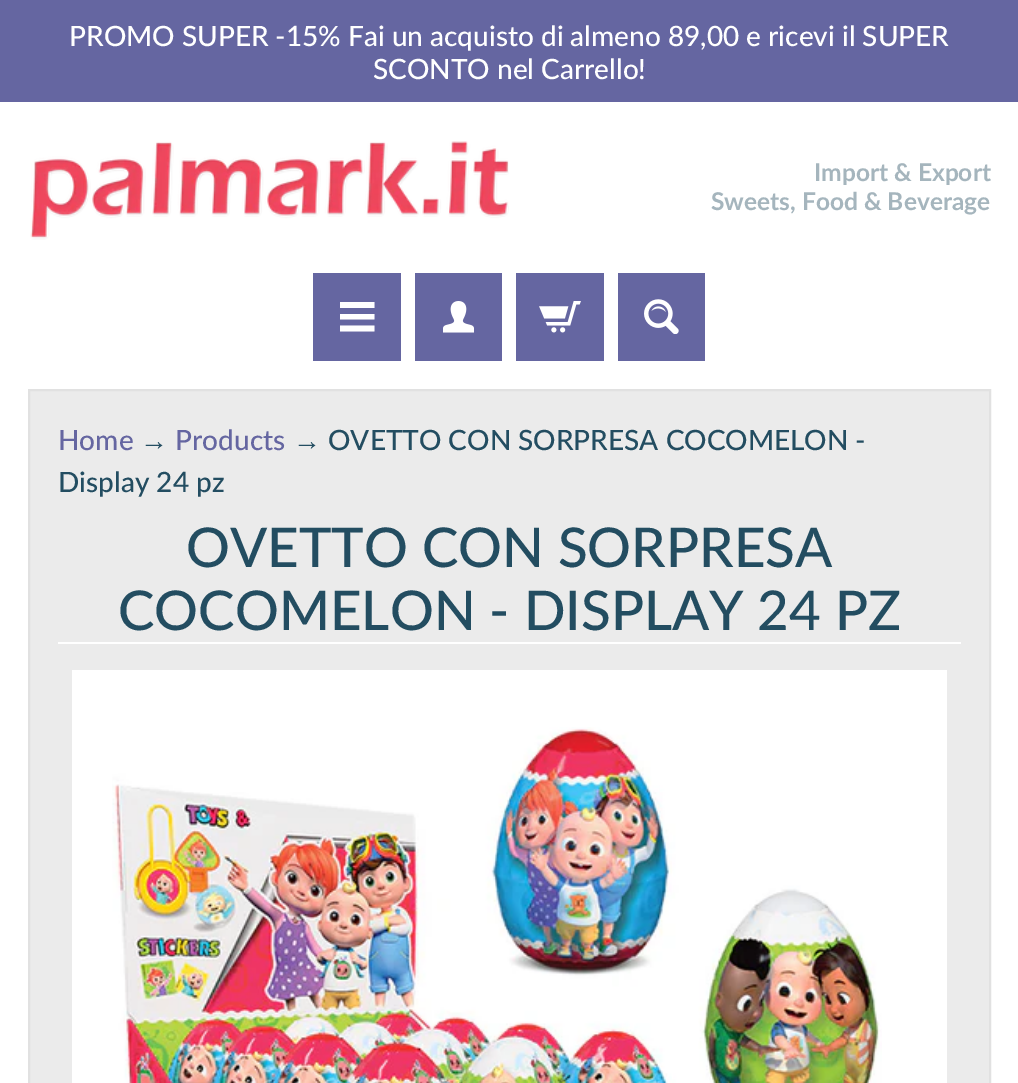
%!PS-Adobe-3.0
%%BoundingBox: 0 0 1018 1083
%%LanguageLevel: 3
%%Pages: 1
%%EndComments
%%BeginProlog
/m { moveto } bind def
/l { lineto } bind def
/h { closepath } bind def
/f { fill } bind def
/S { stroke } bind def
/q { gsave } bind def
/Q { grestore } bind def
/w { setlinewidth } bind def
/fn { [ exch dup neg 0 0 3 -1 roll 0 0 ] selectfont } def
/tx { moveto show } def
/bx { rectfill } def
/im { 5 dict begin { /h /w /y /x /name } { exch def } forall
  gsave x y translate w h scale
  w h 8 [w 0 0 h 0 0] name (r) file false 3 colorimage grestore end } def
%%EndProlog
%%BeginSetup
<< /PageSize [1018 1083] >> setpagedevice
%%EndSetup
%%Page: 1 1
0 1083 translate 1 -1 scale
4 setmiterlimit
1 setgray
0 0 1018 1083 bx
0.396 0.4 0.631 setrgbcolor
0 0 1018 102 bx
/Lato-Medium 28 fn
1 setgray
(PROMO SUPER -15% Fai un acquisto di almeno 89,00 e ricevi il SUPER) 69 46 tx
(SCONTO nel Carrello!) 373 79 tx
(image0.raw) 30 141 479 99 im
/Lato-Bold 24.5 fn
0.647 0.71 0.741 setrgbcolor
(Import & Export) 814 181 tx
(Sweets, Food & Beverage) 711 210 tx
0.396 0.4 0.631 setrgbcolor
313 273 88 88 bx
q
340 299 35 35 rectclip
1 setgray
374.5 308 m 339.5 308 l 339.5 302 l 374.5 302 l h 374.5 314 m 339.5 314 l 339.5 319.5 l 374.5 319.5 l h 374.5 325.5 m 339.5 325.5 l 339.5 331.5 l 374.5 331.5 l h f
Q
415 273 87 88 bx
(image1.raw) 443 301 31 32 im
516 273 88 88 bx
(image2.raw) 539 301 42 32 im
618 273 87 88 bx
(image3.raw) 644 299 35 35 im
0.922 setgray
29 390 m 990 390 l 990 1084 l 29 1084 l h q f Q
0.882 setgray
2 w
S
/Lato-Medium 28 fn
0.396 0.4 0.631 setrgbcolor
(Home) 58 450 tx
/LiberationSans-Regular 28 fn
0.137 0.302 0.38 setrgbcolor
(→) 140 450 tx
/Lato-Medium 28 fn
0.396 0.4 0.631 setrgbcolor
(Products) 175 450 tx
/LiberationSans-Regular 28 fn
0.137 0.302 0.38 setrgbcolor
(→) 293 450 tx
/Lato-Medium 28 fn
(OVETTO CON SORPRESA COCOMELON -) 328 450 tx
(Display 24 pz) 58 492 tx
1 setgray
58 642 903 2 bx
/Lato-Medium 54.75 fn
0.137 0.302 0.38 setrgbcolor
(OVETTO CON SORPRESA) 186 567 tx
(COCOMELON - DISPLAY 24 PZ) 118 630 tx
1 setgray
72 670 875 413 bx
(image4.raw) 112 727 770 356 im
showpage
%%EOF
